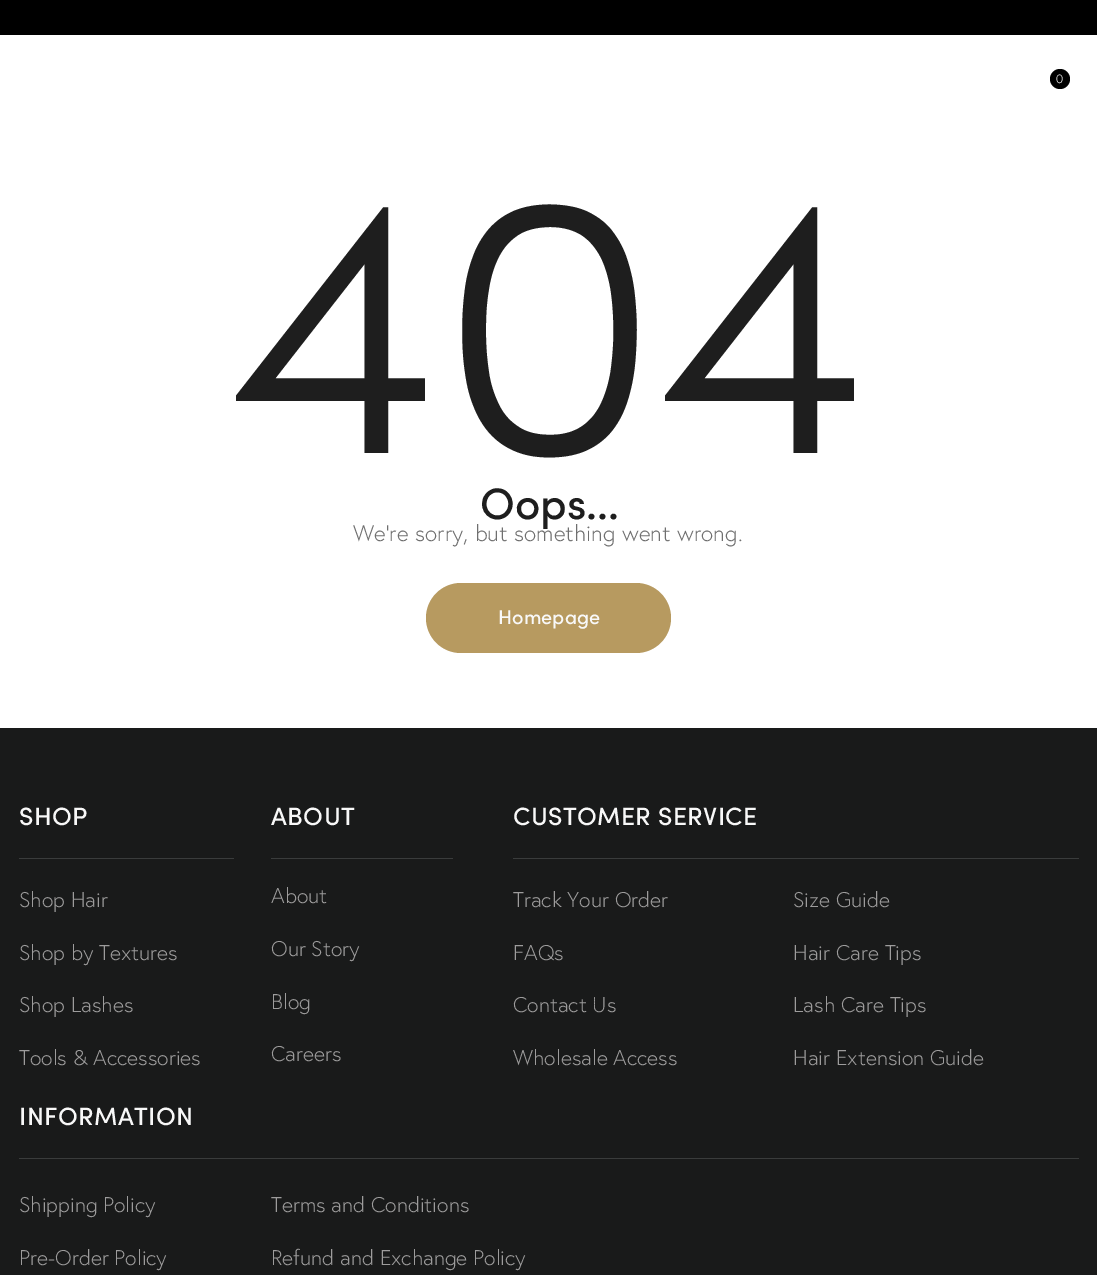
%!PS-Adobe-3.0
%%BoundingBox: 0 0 1097 1275
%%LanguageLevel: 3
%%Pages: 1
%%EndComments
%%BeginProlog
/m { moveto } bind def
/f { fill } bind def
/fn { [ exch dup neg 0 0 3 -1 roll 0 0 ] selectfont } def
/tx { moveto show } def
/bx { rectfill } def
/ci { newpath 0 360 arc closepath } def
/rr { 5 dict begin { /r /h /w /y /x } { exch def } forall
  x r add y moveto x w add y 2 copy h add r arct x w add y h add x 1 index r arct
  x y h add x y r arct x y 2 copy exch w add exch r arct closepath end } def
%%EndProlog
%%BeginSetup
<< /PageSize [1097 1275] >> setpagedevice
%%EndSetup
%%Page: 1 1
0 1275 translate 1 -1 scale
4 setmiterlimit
1 setgray
0 0 1097 1275 bx
0 setgray
0 0 1097 35 bx
1060 79 10 ci f
/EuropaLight-Light 12 fn
1 setgray
(0) 1056 83 tx
/Sofia-Light 375 fn
0.118 setgray
230 453 m -2 0 (404) ashow
/Sofia-Medium 44 fn
(Oops...) 480 519 tx
/EuropaLight-Light 22.5 fn
0.435 setgray
353 541 m 0.1 0 (We're sorry, but something went wrong.) ashow
0.718 0.604 0.376 setrgbcolor
426 583 245 70 35 rr f
/Sofia-Medium 20 fn
0.973 setgray
(Homepage) 498 624 tx
0.098 0.102 0.102 setrgbcolor
0 728 1097 547 bx
/Sofia-Medium 25 fn
0.973 setgray
19 825 m 0.4 0 (SHOP) ashow
0.227 0.235 0.235 setrgbcolor
19 858 215 1 bx
/EuropaLight-Light 21.25 fn
0.616 0.612 0.612 setrgbcolor
(Shop Hair) 19 907 tx
(Shop by Textures) 19 960 tx
(Shop Lashes) 19 1012 tx
(Tools & Accessories) 19 1065 tx
/Sofia-Medium 25 fn
0.973 setgray
271 825 m 0.4 0 (ABOUT) ashow
0.227 0.235 0.235 setrgbcolor
271 858 182 1 bx
/EuropaLight-Light 21.25 fn
0.616 0.612 0.612 setrgbcolor
(About) 271 903 tx
(Our Story) 271 956 tx
(Blog) 271 1009 tx
(Careers) 271 1061 tx
/Sofia-Medium 25 fn
0.973 setgray
513 825 m 0.4 0 (CUSTOMER SERVICE) ashow
0.227 0.235 0.235 setrgbcolor
513 858 566 1 bx
/EuropaLight-Light 21.25 fn
0.616 0.612 0.612 setrgbcolor
(Track Your Order) 513 907 tx
(FAQs) 513 960 tx
(Contact Us) 513 1012 tx
(Wholesale Access) 513 1065 tx
(Size Guide) 793 907 tx
(Hair Care Tips) 793 960 tx
(Lash Care Tips) 793 1012 tx
(Hair Extension Guide) 793 1065 tx
/Sofia-Medium 25 fn
0.973 setgray
19 1125 m 0.4 0 (INFORMATION) ashow
0.227 0.235 0.235 setrgbcolor
19 1158 1060 1 bx
/EuropaLight-Light 21.25 fn
0.616 0.612 0.612 setrgbcolor
(Shipping Policy) 19 1212 tx
(Pre-Order Policy) 19 1265 tx
(Terms and Conditions) 271 1212 tx
(Refund and Exchange Policy) 271 1265 tx
showpage
%%EOF
